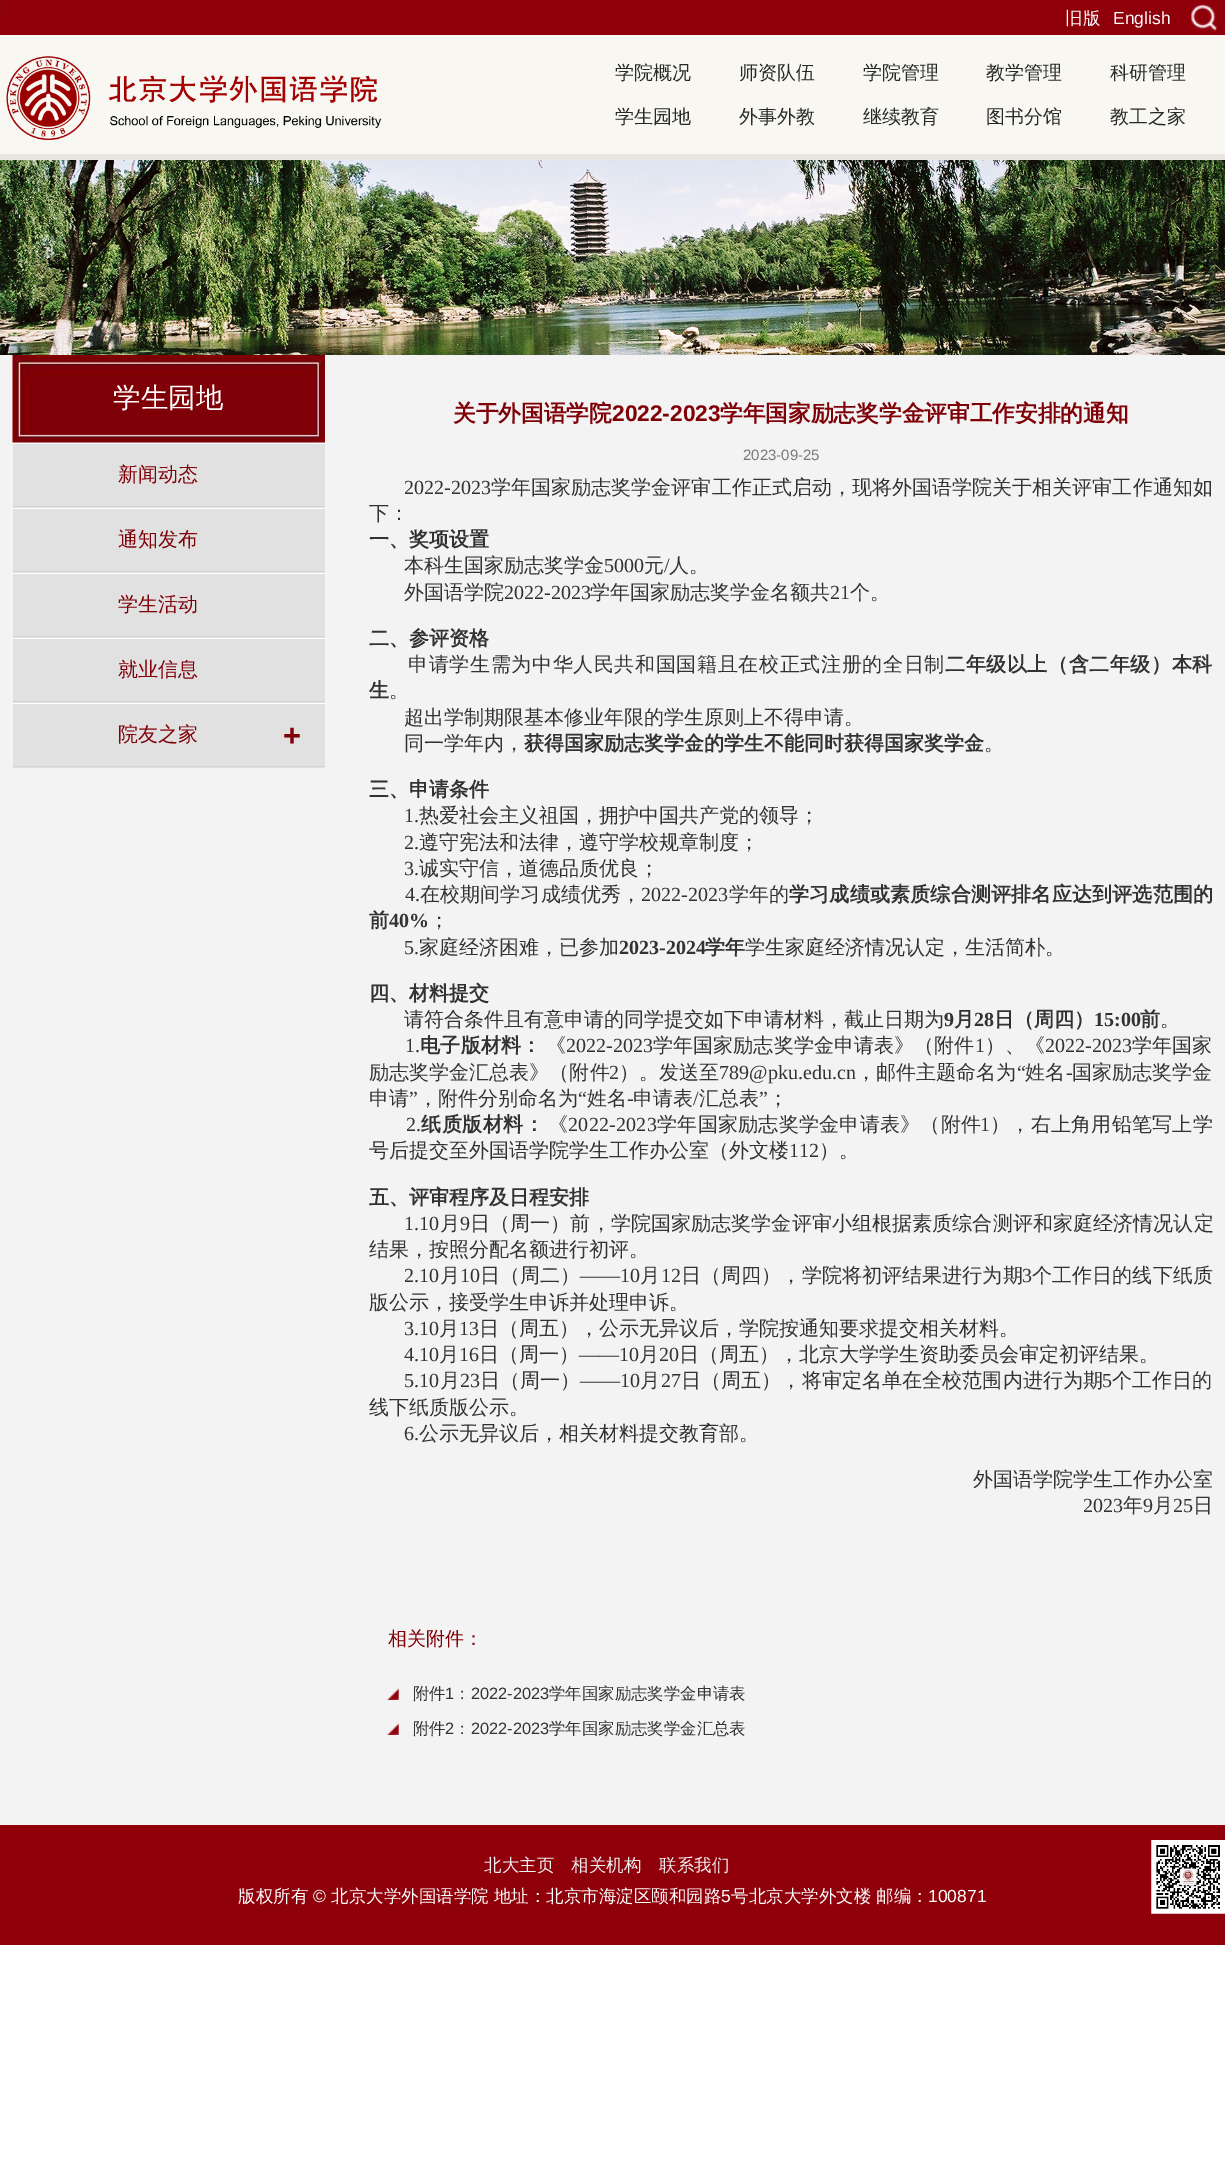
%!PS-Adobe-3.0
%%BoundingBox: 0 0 1225 2172
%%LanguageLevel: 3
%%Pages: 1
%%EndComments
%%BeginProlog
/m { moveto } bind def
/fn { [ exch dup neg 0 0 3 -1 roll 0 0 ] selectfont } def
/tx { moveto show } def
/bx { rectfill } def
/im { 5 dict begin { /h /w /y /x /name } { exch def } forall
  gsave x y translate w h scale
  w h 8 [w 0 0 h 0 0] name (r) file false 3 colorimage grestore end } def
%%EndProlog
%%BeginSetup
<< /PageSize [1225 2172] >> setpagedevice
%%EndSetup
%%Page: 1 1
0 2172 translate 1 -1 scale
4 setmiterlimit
1 setgray
0 0 1225 2172 bx
0.953 setgray
0 355 1225 1470 bx
0.973 0.969 0.949 setrgbcolor
0 35 1225 119 bx
0.914 0.902 0.875 setrgbcolor
0 154 1225 6 bx
0.561 0 0.043 setrgbcolor
0 0 1225 35 bx
/LiberationSans-Regular 13 fn
0.196 setgray
(|) 0 11 tx
/WenQuanYiZenHei-Medium 17.5 fn
1 setgray
(旧版) 1065 24 tx
/LiberationSans-Regular 17.5 fn
(English) 1113 24 tx
(image0.raw) 1191 4 26 27 im
(image1.raw) 6 56 376 84 im
/WenQuanYiZenHei-Medium 19 fn
0.157 setgray
(学院概况) 615 79 tx
(师资队伍) 739 79 tx
(学院管理) 863 79 tx
(教学管理) 986 79 tx
(科研管理) 1110 79 tx
(学生园地) 615 123 tx
(外事外教) 739 123 tx
(继续教育) 863 123 tx
(图书分馆) 986 123 tx
(教工之家) 1110 123 tx
(image2.raw) 0 160 1225 195 im
(image3.raw) 12 355 313 88 im
/WenQuanYiZenHei-Medium 27.5 fn
1 setgray
(学生园地) 113 407 tx
0.882 setgray
13 444 312 324 bx
1 setgray
13 443 312 1 bx
0.827 setgray
13 506 312 1 bx
/WenQuanYiZenHei-Medium 20 fn
0.498 0 0.027 setrgbcolor
(新闻动态) 118 481 tx
1 setgray
13 508 312 1 bx
0.827 setgray
13 571 312 1 bx
0.498 0 0.027 setrgbcolor
(通知发布) 118 546 tx
1 setgray
13 573 312 1 bx
0.827 setgray
13 636 312 1 bx
0.498 0 0.027 setrgbcolor
(学生活动) 118 611 tx
1 setgray
13 638 312 1 bx
0.827 setgray
13 701 312 1 bx
0.498 0 0.027 setrgbcolor
(就业信息) 118 676 tx
1 setgray
13 703 312 1 bx
0.827 setgray
13 766 312 1 bx
0.498 0 0.027 setrgbcolor
(院友之家) 118 741 tx
/LiberationSans-Bold 31 fn
(+) 283 746 tx
/WenQuanYiZenHei-Bold 22.7 fn
(关于外国语学院) 453 421 tx
/LiberationSans-Bold 22.7 fn
(2022-2023) 612 421 tx
/WenQuanYiZenHei-Bold 22.7 fn
(学年国家励志奖学金评审工作安排的通知) 720 421 tx
/LiberationSans-Regular 15 fn
0.471 setgray
(2023-09-25) 743 460 tx
/LiberationSerif-Regular 20 fn
0.196 setgray
404 494 m 0.05 0 (2022-2023) ashow
/WenQuanYiZenHei-Medium 20 fn
491 494 m 0.05 0 (学年国家励志奖学金评审工作正式启动，现将外国语学院关于相关评审工作通知如) ashow
(下：) 369 520 tx
/WenQuanYiZenHei-Bold 20 fn
(一、奖项设置) 369 546 tx
/WenQuanYiZenHei-Medium 20 fn
(本科生国家励志奖学金) 404 572 tx
/LiberationSerif-Regular 20 fn
(5000) 604 572 tx
/WenQuanYiZenHei-Medium 20 fn
(元) 644 572 tx
/LiberationSerif-Regular 20 fn
(/) 664 572 tx
/WenQuanYiZenHei-Medium 20 fn
(人。) 669 572 tx
(外国语学院) 404 599 tx
/LiberationSerif-Regular 20 fn
(2022-2023) 504 599 tx
/WenQuanYiZenHei-Medium 20 fn
(学年国家励志奖学金名额共) 590 599 tx
/LiberationSerif-Regular 20 fn
(21) 830 599 tx
/WenQuanYiZenHei-Medium 20 fn
(个。) 850 599 tx
/WenQuanYiZenHei-Bold 20 fn
(二、参评资格) 369 645 tx
/WenQuanYiZenHei-Medium 20 fn
408 671 m 0.65 0 (申请学生需为中华人民共和国国籍且在校正式注册的全日制) ashow
/WenQuanYiZenHei-Bold 20 fn
945 671 m 0.6 0 (二年级以上（含二年级）本科) ashow
(生) 369 697 tx
/WenQuanYiZenHei-Medium 20 fn
(。) 389 697 tx
(超出学制期限基本修业年限的学生原则上不得申请。) 404 724 tx
(同一学年内，) 404 750 tx
/WenQuanYiZenHei-Bold 20 fn
(获得国家励志奖学金的学生不能同时获得国家奖学金) 524 750 tx
/WenQuanYiZenHei-Medium 20 fn
(。) 984 750 tx
/WenQuanYiZenHei-Bold 20 fn
(三、申请条件) 369 796 tx
/LiberationSerif-Regular 20 fn
(1.) 404 822 tx
/WenQuanYiZenHei-Medium 20 fn
(热爱社会主义祖国，拥护中国共产党的领导；) 419 822 tx
/LiberationSerif-Regular 20 fn
(2.) 404 849 tx
/WenQuanYiZenHei-Medium 20 fn
(遵守宪法和法律，遵守学校规章制度；) 419 849 tx
/LiberationSerif-Regular 20 fn
(3.) 404 875 tx
/WenQuanYiZenHei-Medium 20 fn
(诚实守信，道德品质优良；) 419 875 tx
/LiberationSerif-Regular 20 fn
405 901 m 0.1 0 (4.) ashow
/WenQuanYiZenHei-Medium 20 fn
420 901 m 0.1 0 (在校期间学习成绩优秀，) ashow
/LiberationSerif-Regular 20 fn
641 901 m 0.1 0 (2022-2023) ashow
/WenQuanYiZenHei-Medium 20 fn
729 901 m 0.1 0 (学年的) ashow
/WenQuanYiZenHei-Bold 20 fn
789 901 m 0.2 0 (学习成绩或素质综合测评排名应达到评选范围的) ashow
(前) 369 927 tx
/LiberationSerif-Bold 20 fn
(40%) 389 927 tx
/WenQuanYiZenHei-Medium 20 fn
(；) 429 927 tx
/LiberationSerif-Regular 20 fn
(5.) 404 954 tx
/WenQuanYiZenHei-Medium 20 fn
(家庭经济困难，已参加) 419 954 tx
/LiberationSerif-Bold 20 fn
(2023-2024) 619 954 tx
/WenQuanYiZenHei-Bold 20 fn
(学年) 705 954 tx
/WenQuanYiZenHei-Medium 20 fn
(学生家庭经济情况认定，生活简朴。) 745 954 tx
/WenQuanYiZenHei-Bold 20 fn
(四、材料提交) 369 1000 tx
/WenQuanYiZenHei-Medium 20 fn
(请符合条件且有意申请的同学提交如下申请材料，截止日期为) 404 1026 tx
/LiberationSerif-Bold 20 fn
(9) 944 1026 tx
/WenQuanYiZenHei-Bold 20 fn
(月) 954 1026 tx
/LiberationSerif-Bold 20 fn
(28) 974 1026 tx
/WenQuanYiZenHei-Bold 20 fn
(日（周四）) 994 1026 tx
/LiberationSerif-Bold 20 fn
(15:00) 1094 1026 tx
/WenQuanYiZenHei-Bold 20 fn
(前) 1140 1026 tx
/WenQuanYiZenHei-Medium 20 fn
(。) 1160 1026 tx
/LiberationSerif-Regular 20 fn
(1.) 405 1052 tx
/WenQuanYiZenHei-Bold 20 fn
420 1052 m 0.25 0 (电子版材料：) ashow
/WenQuanYiZenHei-Medium 20 fn
546 1052 m 0.1 0 (《) ashow
/LiberationSerif-Regular 20 fn
566 1052 m 0.1 0 (2022-2023) ashow
/WenQuanYiZenHei-Medium 20 fn
653 1052 m 0.1 0 (学年国家励志奖学金申请表》（附件) ashow
/LiberationSerif-Regular 20 fn
975 1052 m 0.1 0 (1) ashow
/WenQuanYiZenHei-Medium 20 fn
985 1052 m 0.1 0 (）、《) ashow
/LiberationSerif-Regular 20 fn
1045 1052 m 0.1 0 (2022-2023) ashow
/WenQuanYiZenHei-Medium 20 fn
1132 1052 m 0.1 0 (学年国家) ashow
369 1079 m 0.05 0 (励志奖学金汇总表》（附件) ashow
/LiberationSerif-Regular 20 fn
609 1079 m 0.05 0 (2) ashow
/WenQuanYiZenHei-Medium 20 fn
619 1079 m 0.05 0 (）。发送至) ashow
/LiberationSerif-Regular 20 fn
719 1079 m 0.05 0 (789@pku.edu.cn) ashow
/WenQuanYiZenHei-Medium 20 fn
856 1079 m 0.05 0 (，邮件主题命名为) ashow
/LiberationSerif-Regular 20 fn
1017 1079 m 0.05 0 (“) ashow
/WenQuanYiZenHei-Medium 20 fn
1025 1079 m 0.05 0 (姓名) ashow
1072 1079 m 0.05 0 (国家励志奖学金) ashow
/LiberationSerif-Regular 20 fn
1066 1079 m 0.05 0 (-) ashow
/WenQuanYiZenHei-Medium 20 fn
(申请) 369 1105 tx
/LiberationSerif-Regular 20 fn
(”) 409 1105 tx
/WenQuanYiZenHei-Medium 20 fn
(，附件分别命名为) 418 1105 tx
/LiberationSerif-Regular 20 fn
(“) 578 1105 tx
/WenQuanYiZenHei-Medium 20 fn
(姓名) 587 1105 tx
/LiberationSerif-Regular 20 fn
(-) 627 1105 tx
/WenQuanYiZenHei-Medium 20 fn
(申请表) 633 1105 tx
/LiberationSerif-Regular 20 fn
(/) 693 1105 tx
/WenQuanYiZenHei-Medium 20 fn
(汇总表) 699 1105 tx
/LiberationSerif-Regular 20 fn
(”) 759 1105 tx
/WenQuanYiZenHei-Medium 20 fn
(；) 768 1105 tx
/LiberationSerif-Regular 20 fn
(2.) 406 1131 tx
/WenQuanYiZenHei-Bold 20 fn
421 1131 m 0.5 0 (纸质版材料：) ashow
/WenQuanYiZenHei-Medium 20 fn
548 1131 m 0.25 0 (《) ashow
/LiberationSerif-Regular 20 fn
568 1131 m 0.25 0 (2022-2023) ashow
/WenQuanYiZenHei-Medium 20 fn
657 1131 m 0.25 0 (学年国家励志奖学金申请表》（附件) ashow
/LiberationSerif-Regular 20 fn
980 1131 m 0.25 0 (1) ashow
/WenQuanYiZenHei-Medium 20 fn
990 1131 m 0.25 0 (），右上角用铅笔写上学) ashow
(号后提交至外国语学院学生工作办公室（外文楼) 369 1157 tx
/LiberationSerif-Regular 20 fn
(112) 789 1157 tx
/WenQuanYiZenHei-Medium 20 fn
(）。) 819 1157 tx
/WenQuanYiZenHei-Bold 20 fn
(五、评审程序及日程安排) 369 1204 tx
/LiberationSerif-Regular 20 fn
404 1230 m 0.1 0 (1.10) ashow
/WenQuanYiZenHei-Medium 20 fn
440 1230 m 0.1 0 (月) ashow
/LiberationSerif-Regular 20 fn
460 1230 m 0.1 0 (9) ashow
/WenQuanYiZenHei-Medium 20 fn
470 1230 m 0.1 0 (日（周一）前，学院国家励志奖学金评审小组根据素质综合测评和家庭经济情况认定) ashow
(结果，按照分配名额进行初评。) 369 1256 tx
/LiberationSerif-Regular 20 fn
404 1282 m 0.1 0 (2.10) ashow
/WenQuanYiZenHei-Medium 20 fn
440 1282 m 0.1 0 (月) ashow
/LiberationSerif-Regular 20 fn
460 1282 m 0.1 0 (10) ashow
/WenQuanYiZenHei-Medium 20 fn
480 1282 m 0.1 0 (日（周二）) ashow
/LiberationSerif-Regular 20 fn
580 1282 m 0.1 0 (——10) ashow
/WenQuanYiZenHei-Medium 20 fn
640 1282 m 0.1 0 (月) ashow
/LiberationSerif-Regular 20 fn
661 1282 m 0.1 0 (12) ashow
/WenQuanYiZenHei-Medium 20 fn
681 1282 m 0.1 0 (日（周四），学院将初评结果进行为期) ashow
/LiberationSerif-Regular 20 fn
1022 1282 m 0.1 0 (3) ashow
/WenQuanYiZenHei-Medium 20 fn
1032 1282 m 0.1 0 (个工作日的线下纸质) ashow
(版公示，接受学生申诉并处理申诉。) 369 1309 tx
/LiberationSerif-Regular 20 fn
(3.10) 404 1335 tx
/WenQuanYiZenHei-Medium 20 fn
(月) 439 1335 tx
/LiberationSerif-Regular 20 fn
(13) 459 1335 tx
/WenQuanYiZenHei-Medium 20 fn
(日（周五），公示无异议后，学院按通知要求提交相关材料。) 479 1335 tx
/LiberationSerif-Regular 20 fn
(4.10) 404 1361 tx
/WenQuanYiZenHei-Medium 20 fn
(月) 439 1361 tx
/LiberationSerif-Regular 20 fn
(16) 459 1361 tx
/WenQuanYiZenHei-Medium 20 fn
(日（周一）) 479 1361 tx
/LiberationSerif-Regular 20 fn
(——10) 579 1361 tx
/WenQuanYiZenHei-Medium 20 fn
(月) 639 1361 tx
/LiberationSerif-Regular 20 fn
(20) 659 1361 tx
/WenQuanYiZenHei-Medium 20 fn
(日（周五），北京大学学生资助委员会审定初评结果。) 679 1361 tx
/LiberationSerif-Regular 20 fn
(5) 404 1387 tx
414 1387 m 0.1 0 (.10) ashow
/WenQuanYiZenHei-Medium 20 fn
440 1387 m 0.1 0 (月) ashow
/LiberationSerif-Regular 20 fn
460 1387 m 0.1 0 (23) ashow
/WenQuanYiZenHei-Medium 20 fn
480 1387 m 0.1 0 (日（周一）) ashow
/LiberationSerif-Regular 20 fn
580 1387 m 0.1 0 (——10) ashow
/WenQuanYiZenHei-Medium 20 fn
640 1387 m 0.1 0 (月) ashow
/LiberationSerif-Regular 20 fn
661 1387 m 0.1 0 (27) ashow
/WenQuanYiZenHei-Medium 20 fn
681 1387 m 0.1 0 (日（周五），将审定名单在全校范围内进行为期) ashow
/LiberationSerif-Regular 20 fn
1102 1387 m 0.1 0 (5) ashow
/WenQuanYiZenHei-Medium 20 fn
1112 1387 m 0.1 0 (个工作日的) ashow
(线下纸质版公示。) 369 1414 tx
/LiberationSerif-Regular 20 fn
(6.) 404 1440 tx
/WenQuanYiZenHei-Medium 20 fn
(公示无异议后，相关材料提交教育部。) 419 1440 tx
(外国语学院学生工作办公室) 973 1486 tx
/LiberationSerif-Regular 20 fn
(2023) 1083 1512 tx
/WenQuanYiZenHei-Medium 20 fn
(年) 1123 1512 tx
/LiberationSerif-Regular 20 fn
(9) 1143 1512 tx
/WenQuanYiZenHei-Medium 20 fn
(月) 1153 1512 tx
/LiberationSerif-Regular 20 fn
(25) 1173 1512 tx
/WenQuanYiZenHei-Medium 20 fn
(日) 1193 1512 tx
/WenQuanYiZenHei-Medium 19 fn
0.498 0 0.027 setrgbcolor
(相关附件：) 388 1645 tx
(image4.raw) 387 1688 12 12 im
/WenQuanYiZenHei-Medium 16.4 fn
0.196 setgray
(附件) 413 1699 tx
/LiberationSans-Regular 16.4 fn
(1) 445 1699 tx
/WenQuanYiZenHei-Medium 16.4 fn
(：) 454 1699 tx
/LiberationSans-Regular 16.4 fn
(2022-2023) 471 1699 tx
/WenQuanYiZenHei-Medium 16.4 fn
(学年国家励志奖学金申请表) 549 1699 tx
(image4.raw) 387 1723 12 12 im
(附件) 413 1734 tx
/LiberationSans-Regular 16.4 fn
(2) 445 1734 tx
/WenQuanYiZenHei-Medium 16.4 fn
(：) 454 1734 tx
/LiberationSans-Regular 16.4 fn
(2022-2023) 471 1734 tx
/WenQuanYiZenHei-Medium 16.4 fn
(学年国家励志奖学金汇总表) 549 1734 tx
0.561 0 0.043 setrgbcolor
0 1825 1225 120 bx
/WenQuanYiZenHei-Medium 17.5 fn
0.945 setgray
(北大主页) 484 1871 tx
(相关机构) 571 1871 tx
(联系我们) 659 1871 tx
(image5.raw) 1151 1840 74 74 im
1 setgray
(版权所有) 238 1902 tx
/LiberationSans-Regular 17.5 fn
(©) 313 1902 tx
/WenQuanYiZenHei-Medium 17.5 fn
(北京大学外国语学院 地址：北京市海淀区颐和园路) 331 1902 tx
/LiberationSans-Regular 17.5 fn
(5) 721 1902 tx
/WenQuanYiZenHei-Medium 17.5 fn
(号北京大学外文楼 邮编：) 731 1902 tx
/LiberationSans-Regular 17.5 fn
(100871) 928 1902 tx
showpage
%%EOF
